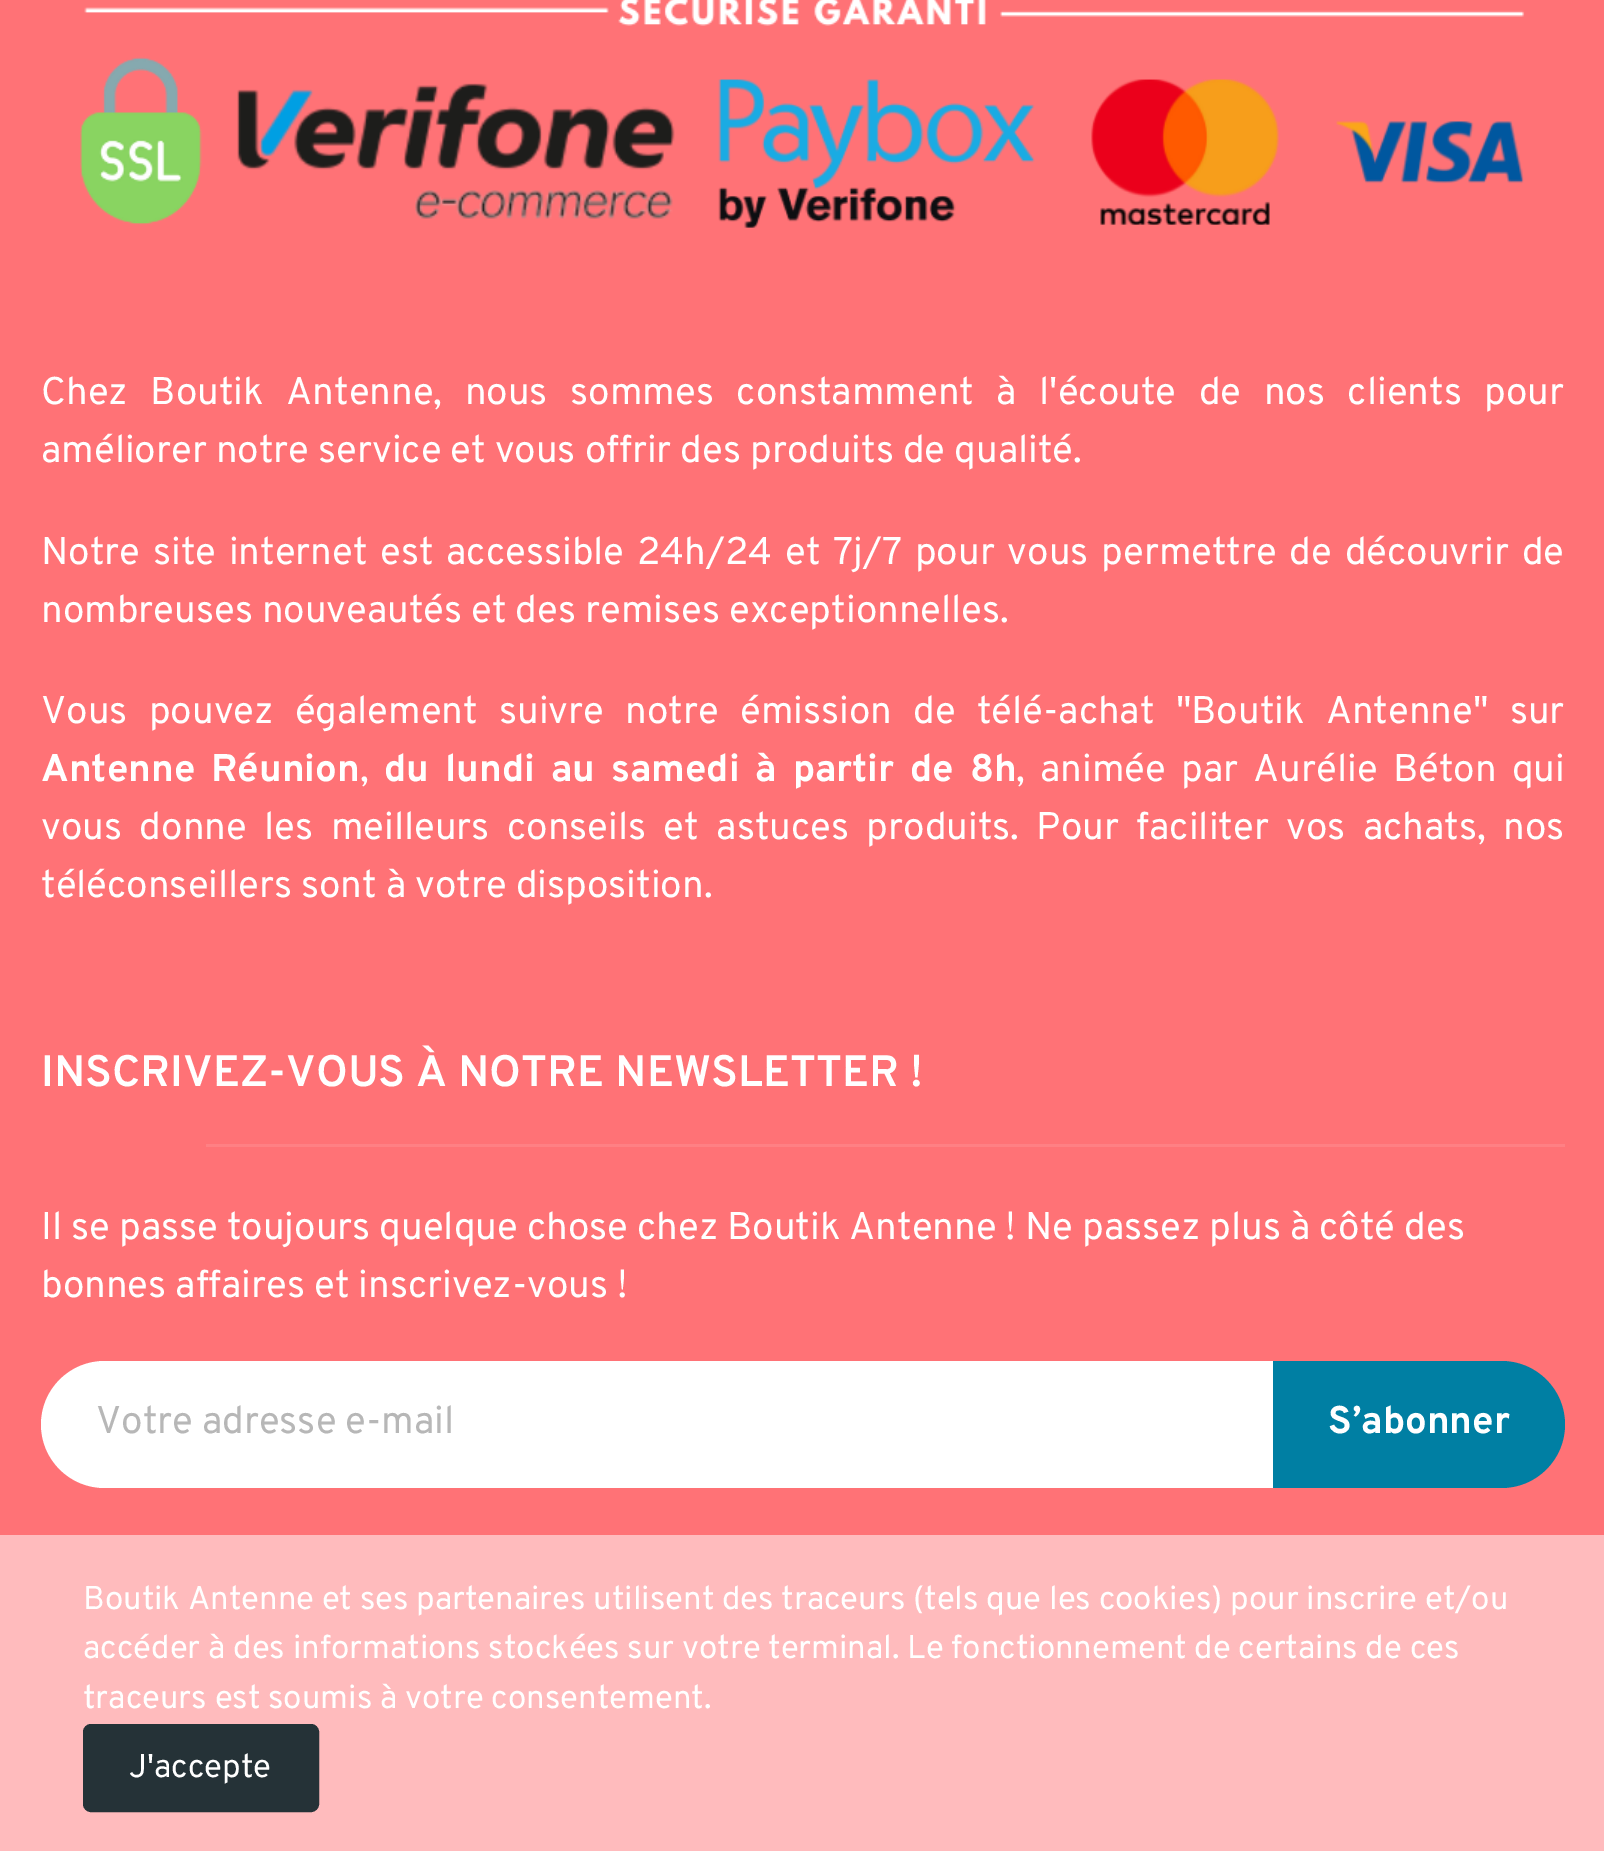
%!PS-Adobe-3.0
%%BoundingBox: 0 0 1604 1851
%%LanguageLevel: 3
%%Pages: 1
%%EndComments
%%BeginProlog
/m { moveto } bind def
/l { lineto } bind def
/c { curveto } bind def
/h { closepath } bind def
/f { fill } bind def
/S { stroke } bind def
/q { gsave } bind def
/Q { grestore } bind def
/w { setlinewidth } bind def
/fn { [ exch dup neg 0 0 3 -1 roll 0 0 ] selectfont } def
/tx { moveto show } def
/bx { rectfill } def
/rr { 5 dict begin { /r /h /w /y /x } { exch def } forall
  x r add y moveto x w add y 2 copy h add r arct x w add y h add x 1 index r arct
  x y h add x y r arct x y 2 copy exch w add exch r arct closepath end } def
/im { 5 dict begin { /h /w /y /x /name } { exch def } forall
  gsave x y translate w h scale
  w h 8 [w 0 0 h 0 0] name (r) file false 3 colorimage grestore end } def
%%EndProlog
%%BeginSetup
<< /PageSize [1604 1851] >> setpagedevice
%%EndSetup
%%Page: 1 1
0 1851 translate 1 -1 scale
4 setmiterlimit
1 0.447 0.463 setrgbcolor
0 0 1604 1851 bx
(image0.raw) 80 0 1445 228 im
/Overpass-Regular 38.5 fn
1 setgray
41 404 m 13.6 0 32 (Chez Boutik Antenne, nous sommes constamment à l'écoute de nos clients pour) widthshow
(améliorer notre service et vous offrir des produits de qualité.) 41 462 tx
41 564 m 3.75 0 32 (Notre site internet est accessible 24h/24 et 7j/7 pour vous permettre de découvrir de) widthshow
(nombreuses nouveautés et des remises exceptionnelles.) 41 622 tx
41 723 m 12.25 0 32 (Vous pouvez également suivre notre émission de télé-achat "Boutik Antenne" sur) widthshow
/Overpass-Bold 38.5 fn
41 781 m 6.25 0 32 (Antenne Réunion) widthshow
/Overpass-Regular 38.5 fn
(,) 360 781 tx
/Overpass-Bold 38.5 fn
384 781 m 6.25 0 32 (du lundi au samedi à partir de 8h) widthshow
/Overpass-Regular 38.5 fn
1016 781 m 6.25 0 32 (, animée par Aurélie Béton qui) widthshow
41 839 m 8.5 0 32 (vous donne les meilleurs conseils et astuces produits. Pour faciliter vos achats, nos) widthshow
(téléconseillers sont à votre disposition.) 41 897 tx
1 0.502 0.518 setrgbcolor
206 1144 1359 3 bx
/Overpass-SemiBold 44 fn
1 setgray
(INSCRIVEZ-VOUS À NOTRE NEWSLETTER !) 41 1086 tx
/Overpass-Regular 38.5 fn
(Il se passe toujours quelque chose chez Boutik Antenne ! Ne passez plus à côté des) 41 1239 tx
(bonnes affaires et inscrivez-vous !) 41 1297 tx
104.5 1361 m 1273 1361 l 1273 1488 l 104.5 1488 l 69.5 1488 41 1459.5 41 1424.5 c 41 1389.5 69.5 1361 104.5 1361 c h f
0.718 setgray
(Votre adresse e-mail) 96 1433 tx
0 0.498 0.639 setrgbcolor
1273 1361 m 1501.5 1361 l 1536.5 1361 1565 1389.5 1565 1424.5 c 1565 1459.5 1536.5 1488 1501.5 1488 c 1273 1488 l h f
/Overpass-Bold 38.5 fn
1 setgray
(S’abonner) 1328 1433 tx
1 0.733 0.741 setrgbcolor
0 1535 1604 316 bx
/Overpass-Regular 33 fn
1 setgray
(Boutik Antenne et ses partenaires utilisent des traceurs \(tels que les cookies\) pour inscrire et/ou) 83 1609 tx
(accéder à des informations stockées sur votre terminal. Le fonctionnement de certains de ces) 83 1658 tx
(traceurs est soumis à votre consentement.) 83 1708 tx
0.145 0.196 0.216 setrgbcolor
86 1727 230 82 5 rr q f Q
6 w
S
1 setgray
(J'accepte) 129 1777 tx
showpage
%%EOF
